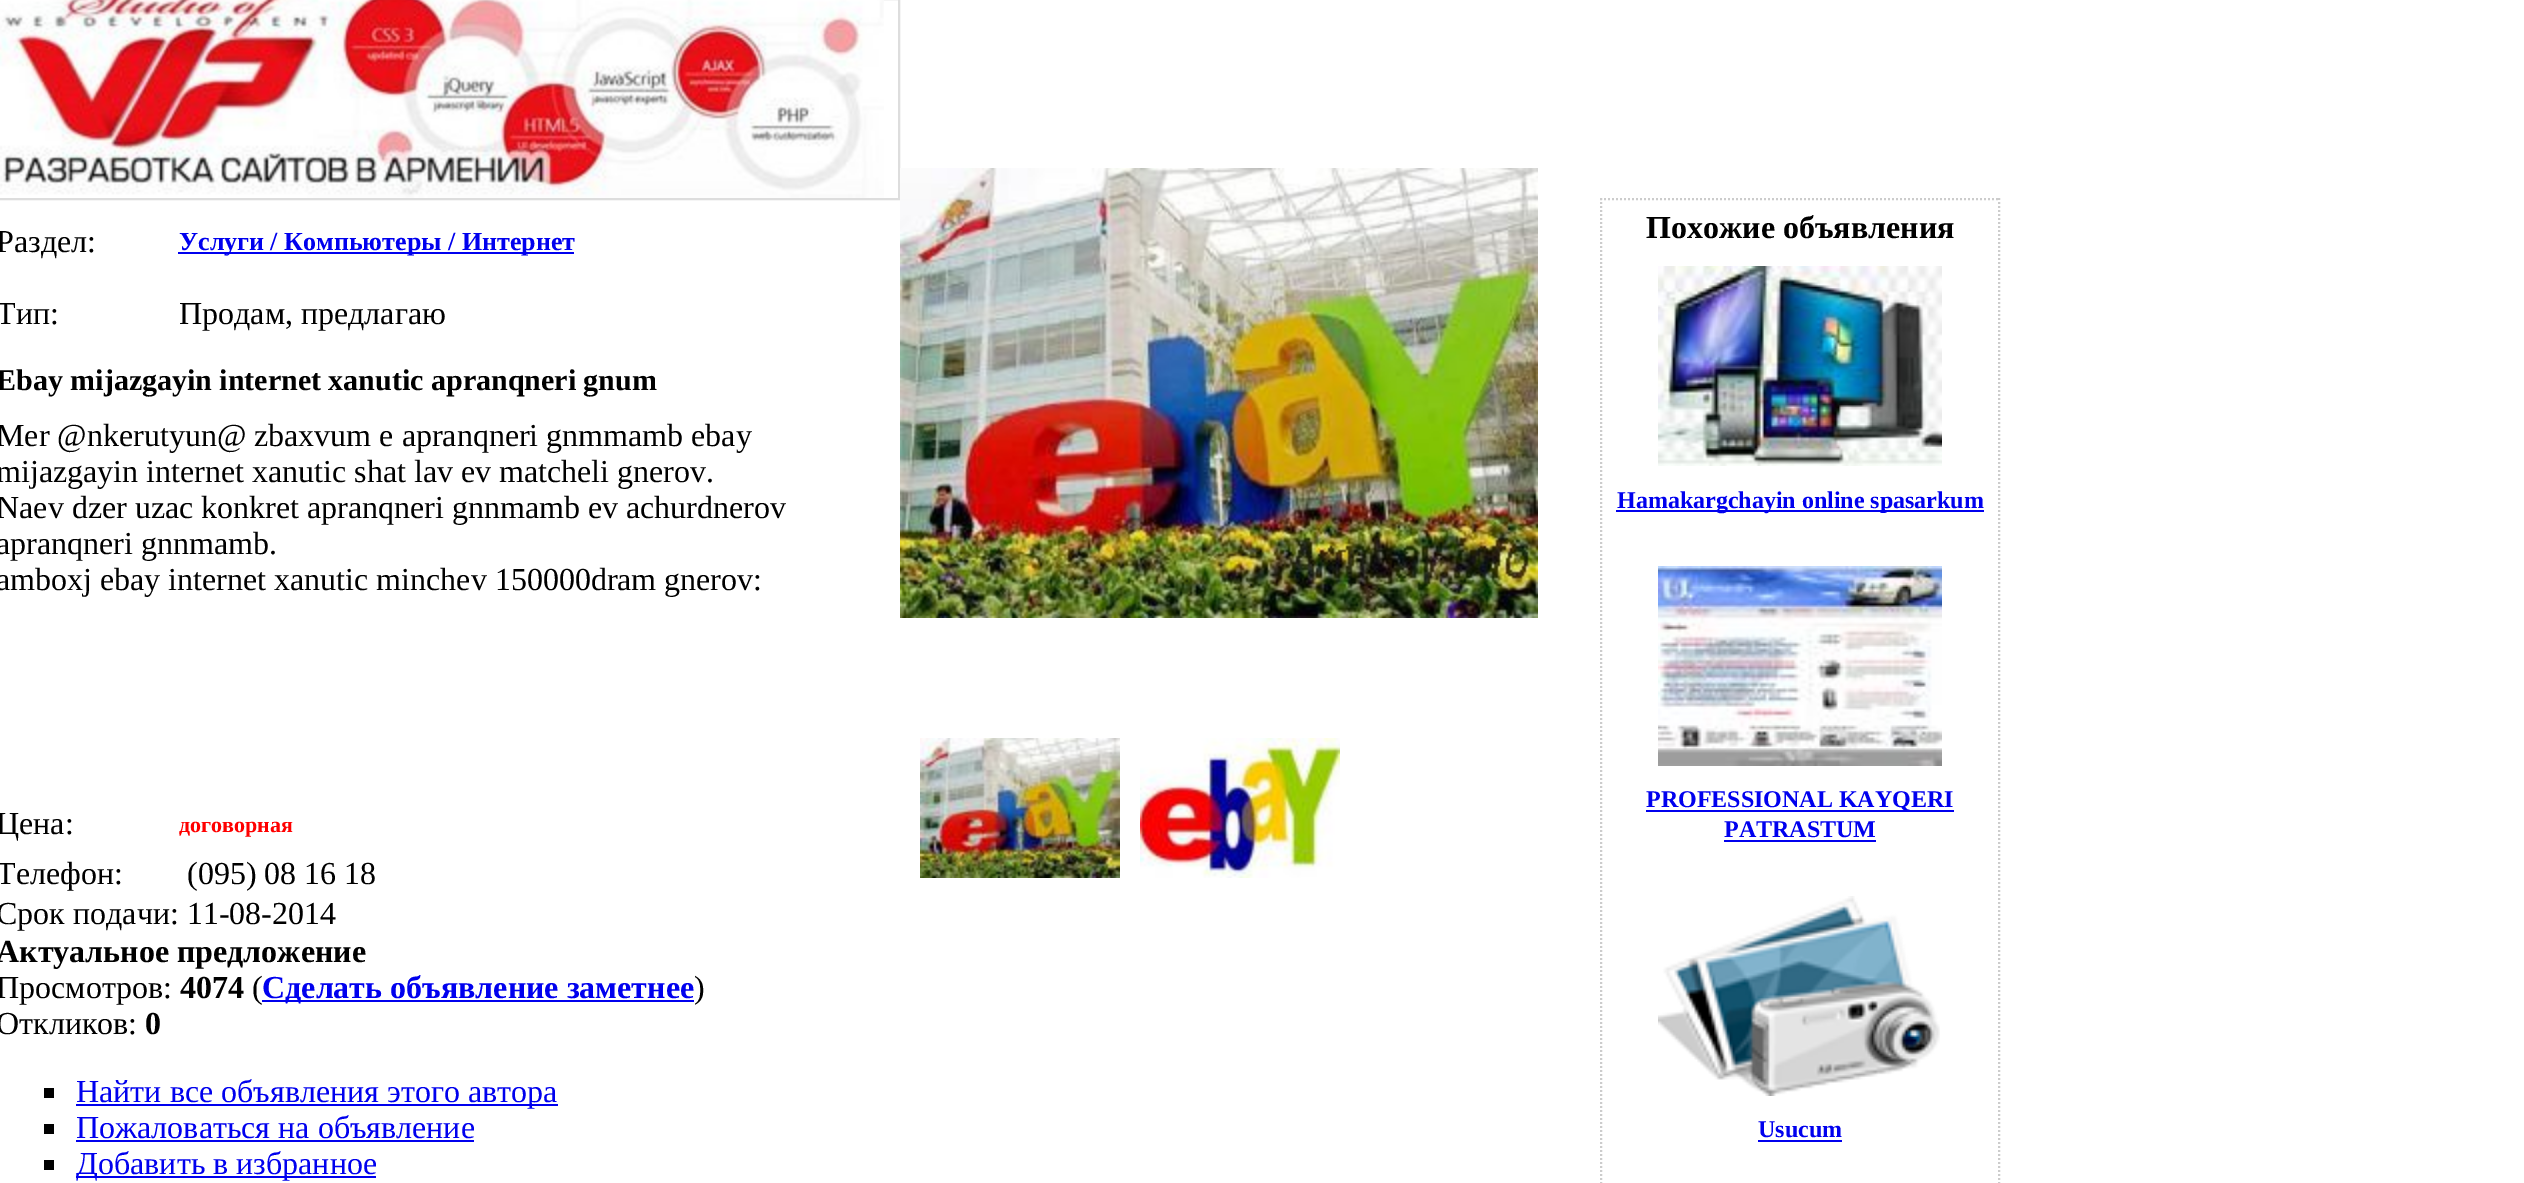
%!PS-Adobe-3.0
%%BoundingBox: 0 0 2524 1183
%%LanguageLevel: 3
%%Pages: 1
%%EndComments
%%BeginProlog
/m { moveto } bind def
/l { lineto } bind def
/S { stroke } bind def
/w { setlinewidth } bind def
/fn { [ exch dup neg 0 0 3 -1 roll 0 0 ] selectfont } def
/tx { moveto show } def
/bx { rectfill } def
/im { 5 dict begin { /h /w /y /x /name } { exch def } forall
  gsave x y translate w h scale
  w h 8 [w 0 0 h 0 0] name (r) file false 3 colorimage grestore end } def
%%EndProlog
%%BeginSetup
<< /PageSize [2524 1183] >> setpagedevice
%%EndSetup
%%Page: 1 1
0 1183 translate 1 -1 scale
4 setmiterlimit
1 setgray
0 0 2524 1183 bx
0.867 setgray
2 w
-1 -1 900 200 rectstroke
(image0.raw) 0 0 884 198 im
/LiberationSerif-Regular 32 fn
0 setgray
(Раздел:) -4 252 tx
0 0 0.933 setrgbcolor
178 252 396 2 bx
/LiberationSerif-Bold 26 fn
(Услуги / Компьютеры / Интернет) 179 250 tx
/LiberationSerif-Regular 32 fn
0 setgray
(Тип:) -4 324 tx
(Продам, предлагаю) 179 324 tx
/LiberationSerif-Bold 30 fn
(Ebay mijazgayin internet xanutic apranqneri gnum) -4 390 tx
/LiberationSerif-Regular 32 fn
(Mer @nkerutyun@ zbaxvum e apranqneri gnmmamb ebay) -4 446 tx
(mijazgayin internet xanutic shat lav ev matcheli gnerov.) -4 482 tx
(Naev dzer uzac konkret apranqneri gnnmamb ev achurdnerov) -4 518 tx
(apranqneri gnnmamb.) -4 554 tx
(amboxj ebay internet xanutic minchev 150000dram gnerov:) -4 590 tx
(Цена:) -4 834 tx
/LiberationSerif-Bold 22 fn
1 0 0 setrgbcolor
(договорная) 179 832 tx
/LiberationSerif-Regular 32 fn
0 setgray
(Телефон:) -4 884 tx
(\(095\) 08 16 18) 187 884 tx
(Срок подачи: 11-08-2014) -4 924 tx
/LiberationSerif-Bold 32 fn
(Актуальное предложение) -4 962 tx
/LiberationSerif-Regular 32 fn
(Просмотров:) -4 998 tx
/LiberationSerif-Bold 32 fn
(4074) 180 998 tx
/LiberationSerif-Regular 32 fn
(\() 252 998 tx
0 0 0.933 setrgbcolor
262 1000 432 2 bx
/LiberationSerif-Bold 32 fn
(Сделать объявление заметнее) 262 998 tx
/LiberationSerif-Regular 32 fn
0 setgray
(\)) 694 998 tx
(Откликов:) -4 1034 tx
/LiberationSerif-Bold 32 fn
(0) 145 1034 tx
44 1088 10 10 bx
0 0 0.933 setrgbcolor
76 1104 482 2 bx
/LiberationSerif-Regular 32 fn
(Найти все объявления этого автора) 76 1102 tx
0 setgray
44 1124 10 10 bx
0 0 0.933 setrgbcolor
(Пожаловаться на объявление) 76 1138 tx
76 1140 398 2 bx
0 setgray
44 1160 10 10 bx
0 0 0.933 setrgbcolor
76 1176 300 2 bx
(Добавить в избранное) 76 1174 tx
(image1.raw) 900 168 638 450 im
(image2.raw) 920 738 200 140 im
(image3.raw) 1140 738 200 140 im
0.8 setgray
[2 2] 0 setdash
1600 199 m 2000 199 l S
1999 198 m 1999 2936 l S
1601 198 m 1601 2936 l S
/LiberationSerif-Bold 32 fn
0 setgray
(Похожие объявления) 1646 238 tx
(image4.raw) 1658 266 284 200 im
0 0 0.933 setrgbcolor
1616 510 368 2 bx
/LiberationSerif-Bold 24 fn
(Hamakargchayin online spasarkum) 1617 508 tx
(image5.raw) 1658 566 284 200 im
1646 810 308 2 bx
(PROFESSIONAL KAYQERI) 1646 807 tx
(PATRASTUM) 1724 837 tx
1724 840 152 2 bx
(image6.raw) 1658 896 282 200 im
(Usucum) 1758 1137 tx
1758 1140 84 2 bx
showpage
%%EOF
